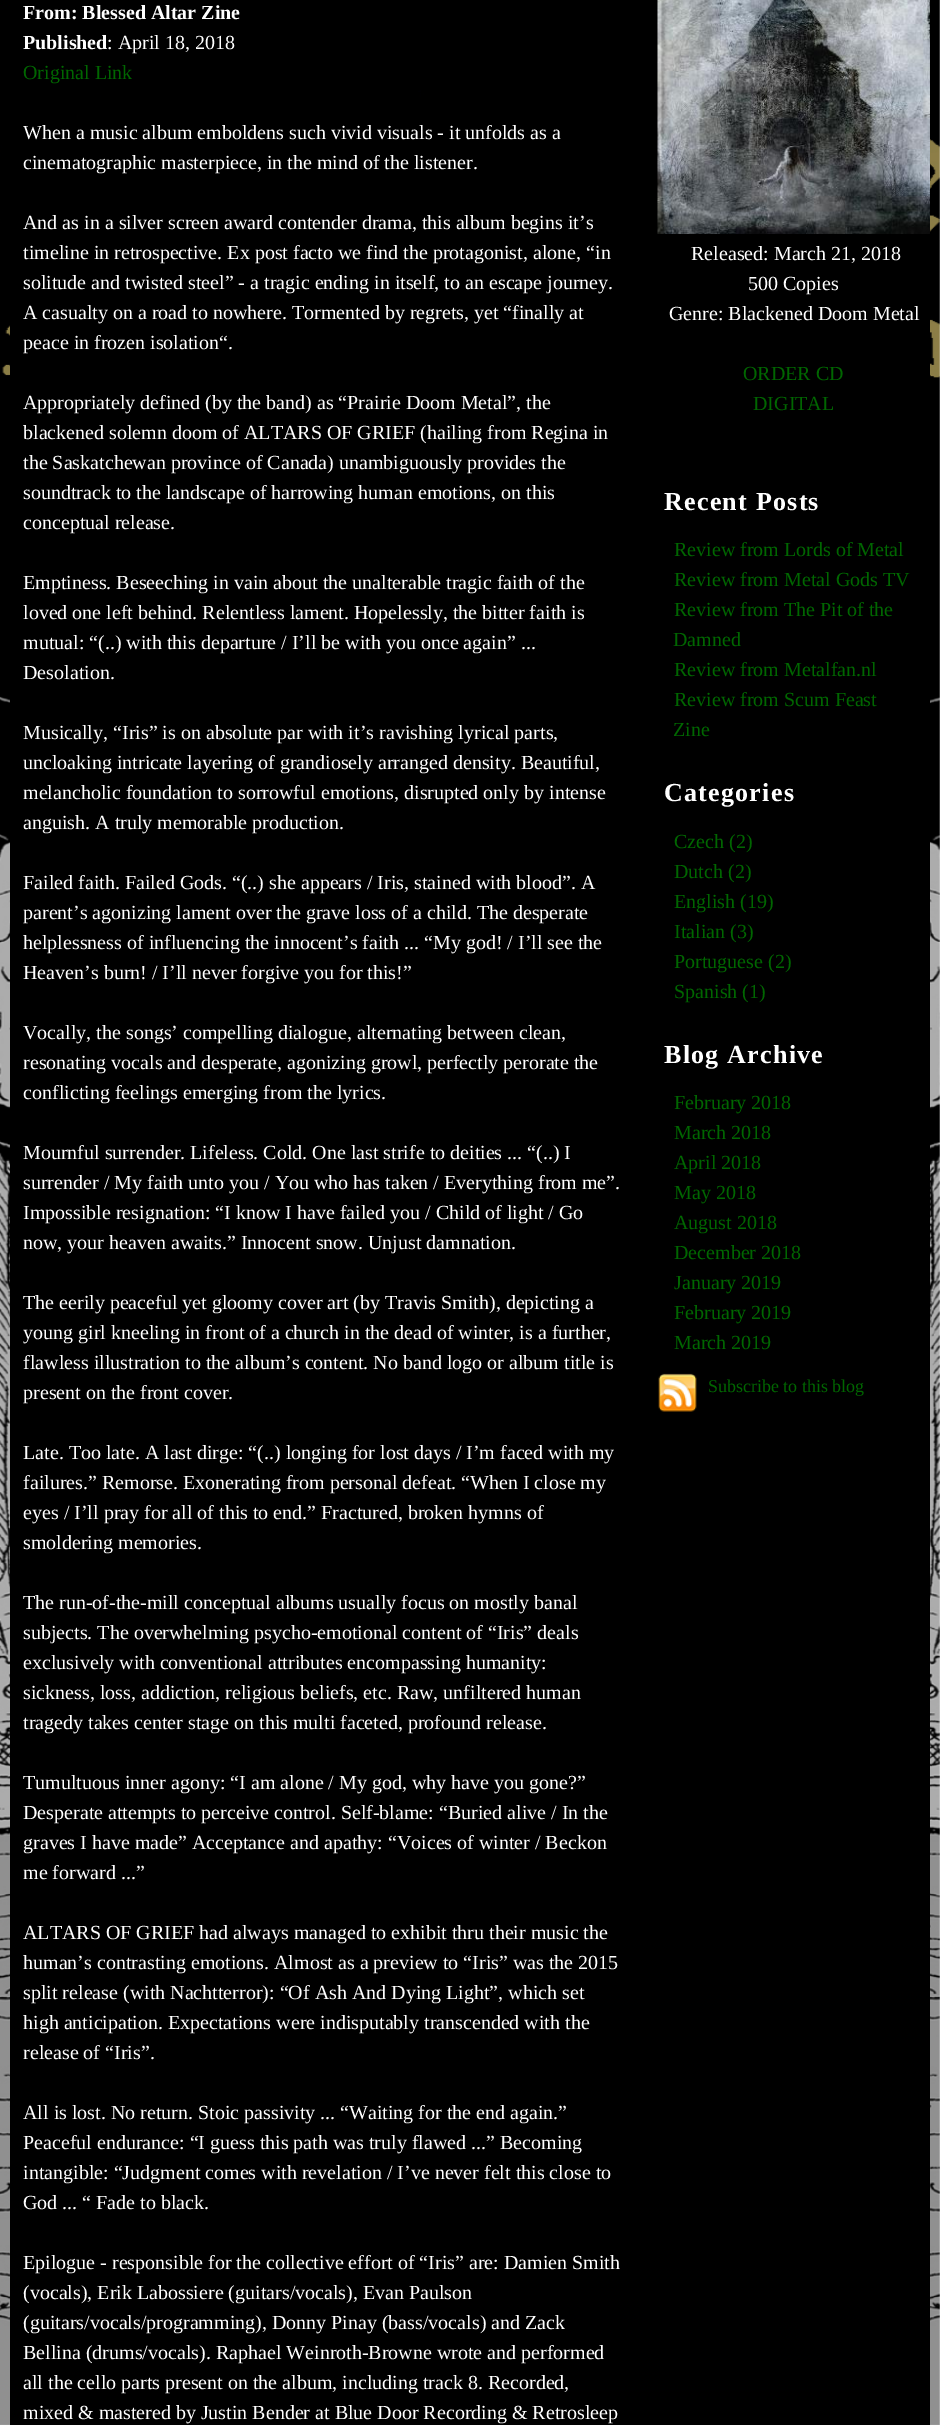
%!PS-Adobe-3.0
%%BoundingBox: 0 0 940 2425
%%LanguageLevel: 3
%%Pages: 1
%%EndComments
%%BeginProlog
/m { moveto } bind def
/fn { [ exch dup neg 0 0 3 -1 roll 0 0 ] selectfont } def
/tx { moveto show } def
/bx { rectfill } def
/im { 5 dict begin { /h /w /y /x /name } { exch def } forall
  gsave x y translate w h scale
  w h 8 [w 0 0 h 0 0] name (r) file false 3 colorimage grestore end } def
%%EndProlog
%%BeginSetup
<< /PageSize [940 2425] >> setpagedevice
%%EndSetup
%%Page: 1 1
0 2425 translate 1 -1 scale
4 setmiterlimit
1 setgray
0 0 940 2425 bx
(image0.raw) 0 0 940 2425 im
0 setgray
10 97 920 2328 bx
/LiberationSerif-Bold 20 fn
1 setgray
(From: Blessed Altar Zine) 23 19 tx
(Published) 23 49 tx
/LiberationSerif-Regular 20 fn
(: April 18, 2018) 107 49 tx
0 0.4 0 setrgbcolor
(Original Link) 23 79 tx
1 setgray
(When a music album emboldens such vivid visuals - it unfolds as a) 23 139 tx
(cinematographic masterpiece, in the mind of the listener.) 23 169 tx
(And as in a silver screen award contender drama, this album begins it’s) 23 229 tx
(timeline in retrospective. Ex post facto we find the protagonist, alone, “in) 23 259 tx
(solitude and twisted steel” - a tragic ending in itself, to an escape journey.) 23 289 tx
(A casualty on a road to nowhere. Tormented by regrets, yet “finally at) 23 319 tx
(peace in frozen isolation“.) 23 349 tx
(Appropriately defined \(by the band\) as “Prairie Doom Metal”, the) 23 409 tx
(blackened solemn doom of ALTARS OF GRIEF \(hailing from Regina in) 23 439 tx
(the Saskatchewan province of Canada\) unambiguously provides the) 23 469 tx
(soundtrack to the landscape of harrowing human emotions, on this) 23 499 tx
(conceptual release.) 23 529 tx
(Emptiness. Beseeching in vain about the unalterable tragic faith of the) 23 589 tx
(loved one left behind. Relentless lament. Hopelessly, the bitter faith is) 23 619 tx
(mutual: “\(..\) with this departure / I’ll be with you once again” ...) 23 649 tx
(Desolation.) 23 679 tx
(Musically, “Iris” is on absolute par with it’s ravishing lyrical parts,) 23 739 tx
(uncloaking intricate layering of grandiosely arranged density. Beautiful,) 23 769 tx
(melancholic foundation to sorrowful emotions, disrupted only by intense) 23 799 tx
(anguish. A truly memorable production.) 23 829 tx
(Failed faith. Failed Gods. “\(..\) she appears / Iris, stained with blood”. A) 23 889 tx
(parent’s agonizing lament over the grave loss of a child. The desperate) 23 919 tx
(helplessness of influencing the innocent’s faith ... “My god! / I’ll see the) 23 949 tx
(Heaven’s burn! / I’ll never forgive you for this!”) 23 979 tx
(Vocally, the songs’ compelling dialogue, alternating between clean,) 23 1039 tx
(resonating vocals and desperate, agonizing growl, perfectly perorate the) 23 1069 tx
(conflicting feelings emerging from the lyrics.) 23 1099 tx
(Mournful surrender. Lifeless. Cold. One last strife to deities ... “\(..\) I) 23 1159 tx
(surrender / My faith unto you / You who has taken / Everything from me”.) 23 1189 tx
(Impossible resignation: “I know I have failed you / Child of light / Go) 23 1219 tx
(now, your heaven awaits.” Innocent snow. Unjust damnation.) 23 1249 tx
(The eerily peaceful yet gloomy cover art \(by Travis Smith\), depicting a) 23 1309 tx
(young girl kneeling in front of a church in the dead of winter, is a further,) 23 1339 tx
(flawless illustration to the album’s content. No band logo or album title is) 23 1369 tx
(present on the front cover.) 23 1399 tx
(Late. Too late. A last dirge: “\(..\) longing for lost days / I’m faced with my) 23 1459 tx
(failures.” Remorse. Exonerating from personal defeat. “When I close my) 23 1489 tx
(eyes / I’ll pray for all of this to end.” Fractured, broken hymns of) 23 1519 tx
(smoldering memories.) 23 1549 tx
(The run-of-the-mill conceptual albums usually focus on mostly banal) 23 1609 tx
(subjects. The overwhelming psycho-emotional content of “Iris” deals) 23 1639 tx
(exclusively with conventional attributes encompassing humanity:) 23 1669 tx
(sickness, loss, addiction, religious beliefs, etc. Raw, unfiltered human) 23 1699 tx
(tragedy takes center stage on this multi faceted, profound release.) 23 1729 tx
(Tumultuous inner agony: “I am alone / My god, why have you gone?”) 23 1789 tx
(Desperate attempts to perceive control. Self-blame: “Buried alive / In the) 23 1819 tx
(graves I have made” Acceptance and apathy: “Voices of winter / Beckon) 23 1849 tx
(me forward ...”) 23 1879 tx
(ALTARS OF GRIEF had always managed to exhibit thru their music the) 23 1939 tx
(human’s contrasting emotions. Almost as a preview to “Iris” was the 2015) 23 1969 tx
(split release \(with Nachtterror\): “Of Ash And Dying Light”, which set) 23 1999 tx
(high anticipation. Expectations were indisputably transcended with the) 23 2029 tx
(release of “Iris”.) 23 2059 tx
(All is lost. No return. Stoic passivity ... “Waiting for the end again.”) 23 2119 tx
(Peaceful endurance: “I guess this path was truly flawed ...” Becoming) 23 2149 tx
(intangible: “Judgment comes with revelation / I’ve never felt this close to) 23 2179 tx
(God ... “ Fade to black.) 23 2209 tx
(Epilogue - responsible for the collective effort of “Iris” are: Damien Smith) 23 2269 tx
(\(vocals\), Erik Labossiere \(guitars/vocals\), Evan Paulson) 23 2299 tx
(\(guitars/vocals/programming\), Donny Pinay \(bass/vocals\) and Zack) 23 2329 tx
(Bellina \(drums/vocals\). Raphael Weinroth-Browne wrote and performed) 23 2359 tx
(all the cello parts present on the album, including track 8. Recorded,) 23 2389 tx
(mixed & mastered by Justin Bender at Blue Door Recording & Retrosleep) 23 2419 tx
(image1.raw) 657 0 273 234 im
(Released: March 21, 2018) 691 260 tx
(500 Copies) 748 290 tx
(Genre: Blackened Doom Metal) 669 320 tx
0 0.4 0 setrgbcolor
(ORDER CD) 743 380 tx
(DIGITAL) 753 410 tx
/LiberationSerif-Bold 26 fn
1 setgray
664 510 m 1.25 0 (Recent Posts) ashow
/LiberationSerif-Regular 20 fn
0 0.4 0 setrgbcolor
(Review from Lords of Metal) 674 556 tx
(Review from Metal Gods TV) 674 586 tx
(Review from The Pit of the) 674 616 tx
(Damned) 673 646 tx
(Review from Metalfan.nl) 674 676 tx
(Review from Scum Feast) 674 706 tx
(Zine) 673 736 tx
/LiberationSerif-Bold 26 fn
1 setgray
664 801 m 1.25 0 (Categories) ashow
/LiberationSerif-Regular 20 fn
0 0.4 0 setrgbcolor
(Czech \(2\)) 674 848 tx
(Dutch \(2\)) 674 878 tx
(English \(19\)) 674 908 tx
(Italian \(3\)) 674 938 tx
(Portuguese \(2\)) 674 968 tx
(Spanish \(1\)) 674 998 tx
/LiberationSerif-Bold 26 fn
1 setgray
664 1063 m 1.25 0 (Blog Archive) ashow
/LiberationSerif-Regular 20 fn
0 0.4 0 setrgbcolor
(February 2018) 674 1109 tx
(March 2018) 674 1139 tx
(April 2018) 674 1169 tx
(May 2018) 674 1199 tx
(August 2018) 674 1229 tx
(December 2018) 674 1259 tx
(January 2019) 674 1289 tx
(February 2019) 674 1319 tx
(March 2019) 674 1349 tx
(image2.raw) 658 1373 39 39 im
/LiberationSerif-Regular 18 fn
(Subscribe to this blog) 708 1392 tx
showpage
%%EOF
